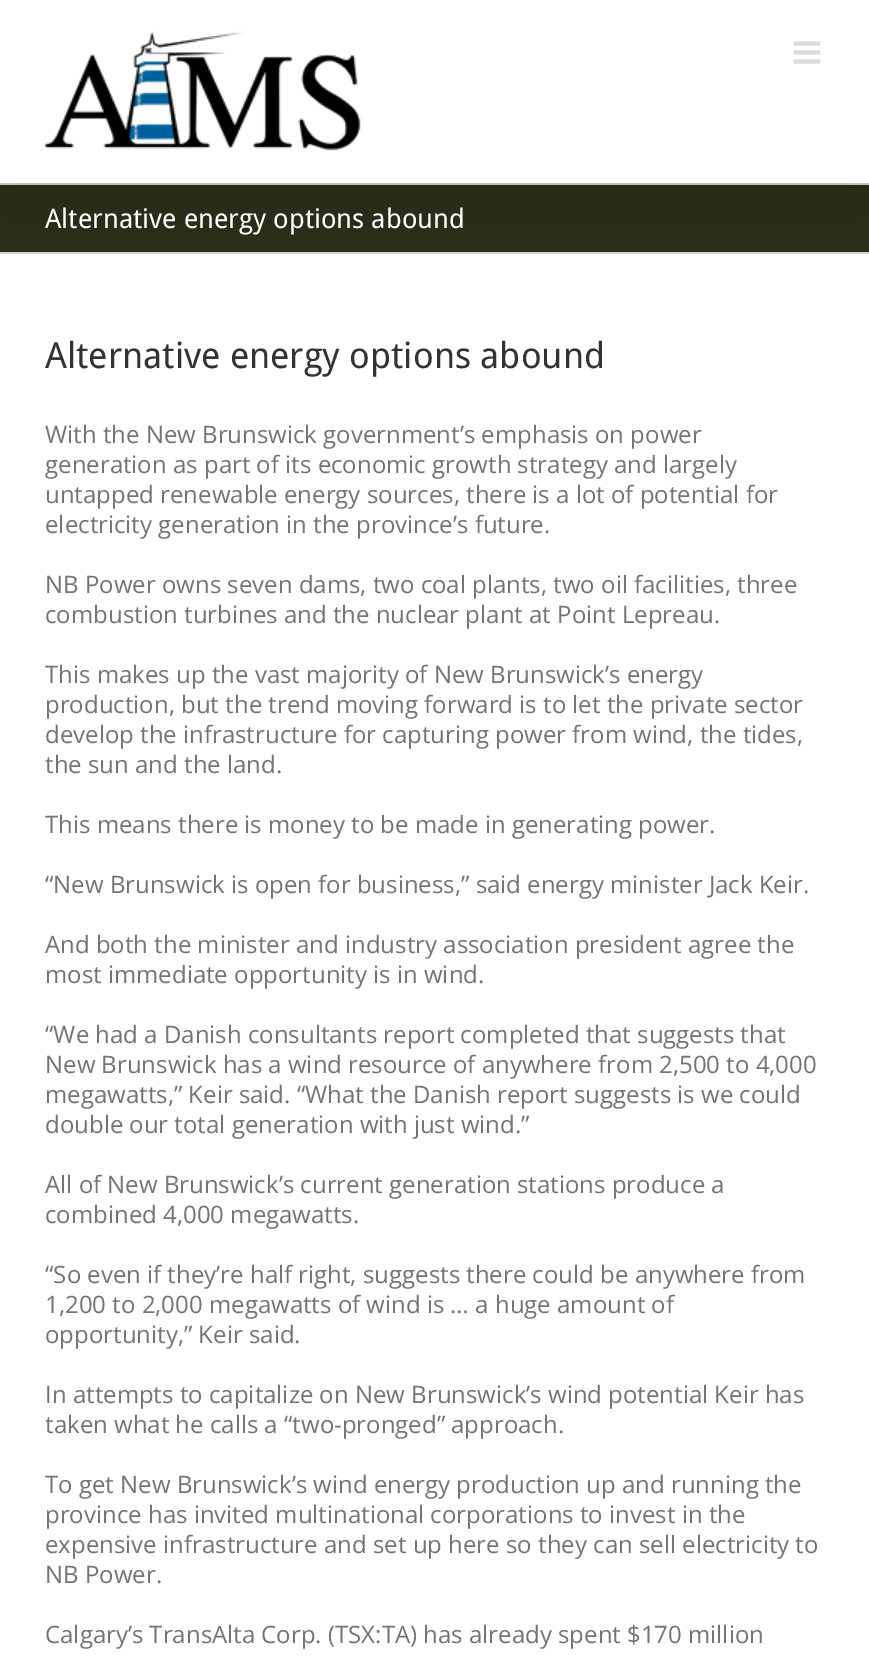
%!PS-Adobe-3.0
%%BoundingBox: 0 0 869 1659
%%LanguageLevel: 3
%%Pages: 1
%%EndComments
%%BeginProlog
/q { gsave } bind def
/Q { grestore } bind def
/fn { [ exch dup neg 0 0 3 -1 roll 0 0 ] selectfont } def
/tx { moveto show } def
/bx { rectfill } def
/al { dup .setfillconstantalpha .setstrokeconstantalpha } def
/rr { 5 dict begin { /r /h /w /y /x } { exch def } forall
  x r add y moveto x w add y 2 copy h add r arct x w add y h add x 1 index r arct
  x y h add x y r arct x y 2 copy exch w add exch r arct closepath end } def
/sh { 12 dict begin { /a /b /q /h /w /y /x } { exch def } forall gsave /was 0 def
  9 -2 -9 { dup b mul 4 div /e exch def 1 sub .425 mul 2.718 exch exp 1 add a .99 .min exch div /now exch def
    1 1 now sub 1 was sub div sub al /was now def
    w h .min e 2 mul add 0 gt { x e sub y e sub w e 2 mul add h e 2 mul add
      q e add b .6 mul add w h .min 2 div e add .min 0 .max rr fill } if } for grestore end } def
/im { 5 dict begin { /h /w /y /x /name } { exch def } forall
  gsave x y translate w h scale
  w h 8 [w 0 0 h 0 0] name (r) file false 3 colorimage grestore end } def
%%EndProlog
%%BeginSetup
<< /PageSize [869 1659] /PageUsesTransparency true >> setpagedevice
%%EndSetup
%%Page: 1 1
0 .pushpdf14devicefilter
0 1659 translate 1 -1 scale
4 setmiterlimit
1 setgray
0 0 869 1659 bx
0.165 0.184 0.094 setrgbcolor
0 185 869 67 bx
0.824 0.827 0.831 setrgbcolor
0 183 869 2 bx
0 252 869 2 bx
q
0 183 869 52 rectclip
0 setgray
3 18 864 177 0 37.5 0.14 sh
Q
(image0.raw) 45 31 316 120 im
(image1.raw) 793 41 28 23 im
/DroidSans-Regular 27 fn
1 setgray
(Alternative energy options abound) 45 228 tx
/DroidSans-Regular 36 fn
0.2 setgray
(Alternative energy options abound) 45 368 tx
/OpenSans-Regular 24 fn
0.455 setgray
(With the New Brunswick government’s emphasis on power) 45 443 tx
(generation as part of its economic growth strategy and largely) 45 473 tx
(untapped renewable energy sources, there is a lot of potential for) 45 503 tx
(electricity generation in the province’s future.) 45 533 tx
(NB Power owns seven dams, two coal plants, two oil facilities, three) 45 593 tx
(combustion turbines and the nuclear plant at Point Lepreau.) 45 623 tx
(This makes up the vast majority of New Brunswick’s energy) 45 683 tx
(production, but the trend moving forward is to let the private sector) 45 713 tx
(develop the infrastructure for capturing power from wind, the tides,) 45 743 tx
(the sun and the land.) 45 773 tx
(This means there is money to be made in generating power.) 45 833 tx
(“New Brunswick is open for business,” said energy minister Jack Keir.) 45 893 tx
(And both the minister and industry association president agree the) 45 953 tx
(most immediate opportunity is in wind.) 45 983 tx
(“We had a Danish consultants report completed that suggests that) 45 1043 tx
(New Brunswick has a wind resource of anywhere from 2,500 to 4,000) 45 1073 tx
(megawatts,” Keir said. “What the Danish report suggests is we could) 45 1103 tx
(double our total generation with just wind.”) 45 1133 tx
(All of New Brunswick’s current generation stations produce a) 45 1193 tx
(combined 4,000 megawatts.) 45 1223 tx
(“So even if they’re half right, suggests there could be anywhere from) 45 1283 tx
(1,200 to 2,000 megawatts of wind is … a huge amount of) 45 1313 tx
(opportunity,” Keir said.) 45 1343 tx
(In attempts to capitalize on New Brunswick’s wind potential Keir has) 45 1403 tx
(taken what he calls a “two-pronged” approach.) 45 1433 tx
(To get New Brunswick’s wind energy production up and running the) 45 1493 tx
(province has invited multinational corporations to invest in the) 45 1523 tx
(expensive infrastructure and set up here so they can sell electricity to) 45 1553 tx
(NB Power.) 45 1583 tx
(Calgary’s TransAlta Corp. \(TSX:TA\) has already spent $170 million) 45 1643 tx
.poppdf14devicefilter showpage
%%EOF
